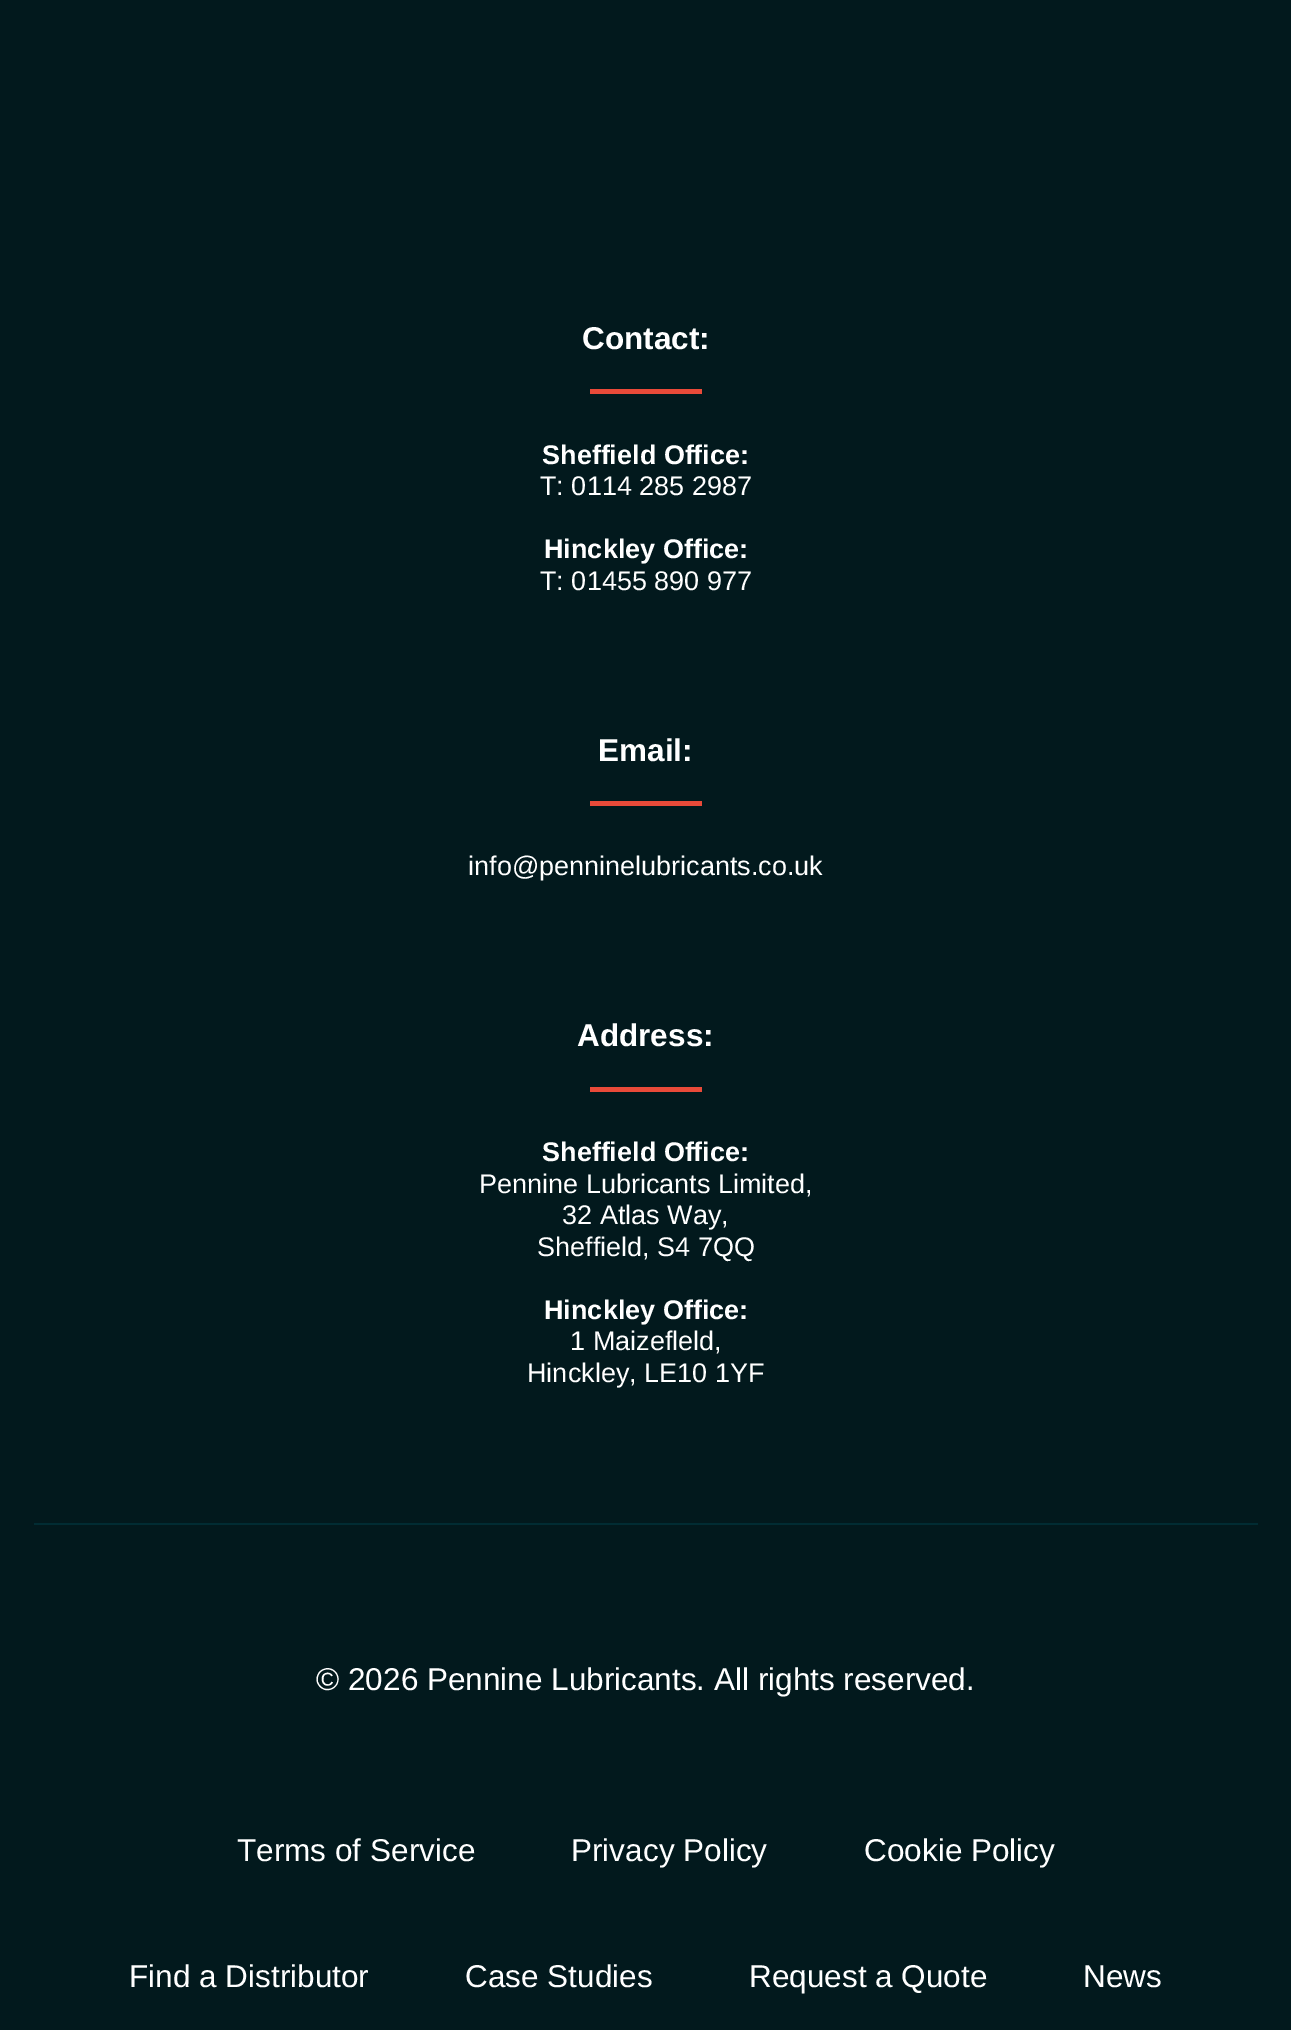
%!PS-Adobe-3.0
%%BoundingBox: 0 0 1291 2030
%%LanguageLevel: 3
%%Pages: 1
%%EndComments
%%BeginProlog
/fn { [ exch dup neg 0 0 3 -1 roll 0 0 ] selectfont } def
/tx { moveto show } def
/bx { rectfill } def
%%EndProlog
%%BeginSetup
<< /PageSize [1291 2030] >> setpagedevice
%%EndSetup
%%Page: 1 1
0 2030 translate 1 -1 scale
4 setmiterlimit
0.008 0.098 0.114 setrgbcolor
0 0 1291 2030 bx
/LiberationSans-Bold 31.5 fn
1 setgray
(Contact:) 582 349 tx
0.914 0.29 0.224 setrgbcolor
590 389 112 5 bx
/LiberationSans-Bold 27 fn
1 setgray
(Sheffield Office:) 542 464 tx
/LiberationSans-Regular 27 fn
(T: 0114 285 2987) 540 495 tx
/LiberationSans-Bold 27 fn
(Hinckley Office:) 544 558 tx
/LiberationSans-Regular 27 fn
(T: 01455 890 977) 540 590 tx
/LiberationSans-Bold 31.5 fn
(Email:) 598 761 tx
0.914 0.29 0.224 setrgbcolor
590 801 112 5 bx
/LiberationSans-Regular 27 fn
1 setgray
(info@penninelubricants.co.uk) 468 875 tx
/LiberationSans-Bold 31.5 fn
(Address:) 577 1046 tx
0.914 0.29 0.224 setrgbcolor
590 1087 112 5 bx
/LiberationSans-Bold 27 fn
1 setgray
(Sheffield Office:) 542 1161 tx
/LiberationSans-Regular 27 fn
(Pennine Lubricants Limited,) 479 1193 tx
(32 Atlas Way,) 562 1224 tx
(Sheffield, S4 7QQ) 537 1256 tx
/LiberationSans-Bold 27 fn
(Hinckley Office:) 544 1319 tx
/LiberationSans-Regular 27 fn
(1 Maizefleld,) 570 1350 tx
(Hinckley, LE10 1YF) 527 1382 tx
0.004 0.173 0.2 setrgbcolor
34 1523 1224 2 bx
/LiberationSans-Regular 31.5 fn
1 setgray
(© 2026 Pennine Lubricants. All rights reserved.) 316 1690 tx
(Terms of Service) 237 1861 tx
(Privacy Policy) 571 1861 tx
(Cookie Policy) 864 1861 tx
(Find a Distributor) 129 1987 tx
(Case Studies) 465 1987 tx
(Request a Quote) 749 1987 tx
(News) 1083 1987 tx
showpage
%%EOF
